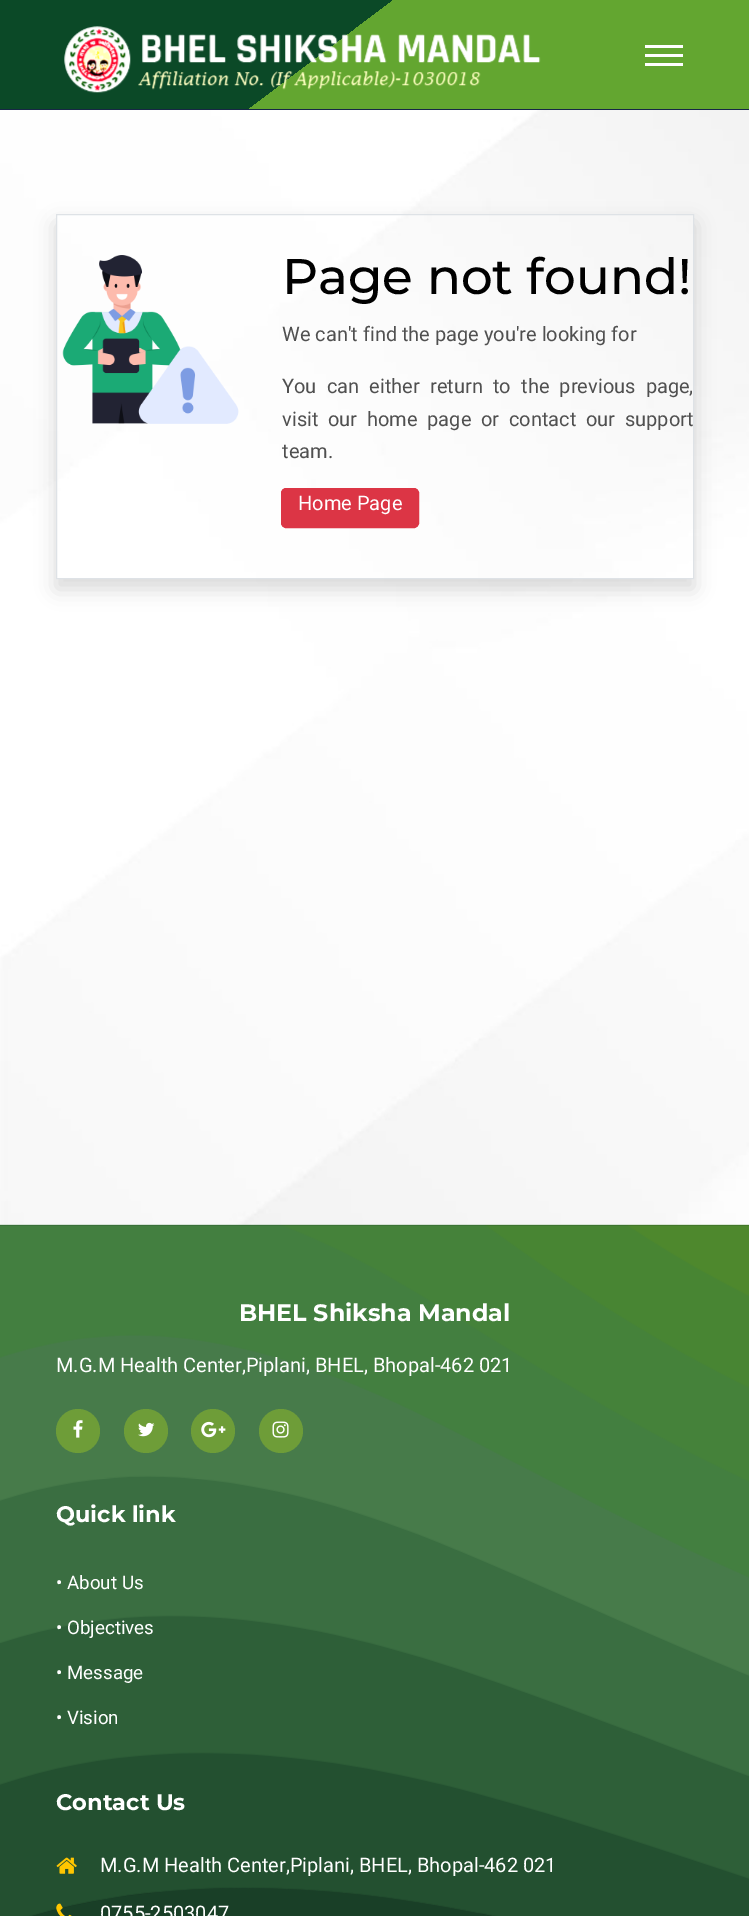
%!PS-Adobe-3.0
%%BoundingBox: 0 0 749 1916
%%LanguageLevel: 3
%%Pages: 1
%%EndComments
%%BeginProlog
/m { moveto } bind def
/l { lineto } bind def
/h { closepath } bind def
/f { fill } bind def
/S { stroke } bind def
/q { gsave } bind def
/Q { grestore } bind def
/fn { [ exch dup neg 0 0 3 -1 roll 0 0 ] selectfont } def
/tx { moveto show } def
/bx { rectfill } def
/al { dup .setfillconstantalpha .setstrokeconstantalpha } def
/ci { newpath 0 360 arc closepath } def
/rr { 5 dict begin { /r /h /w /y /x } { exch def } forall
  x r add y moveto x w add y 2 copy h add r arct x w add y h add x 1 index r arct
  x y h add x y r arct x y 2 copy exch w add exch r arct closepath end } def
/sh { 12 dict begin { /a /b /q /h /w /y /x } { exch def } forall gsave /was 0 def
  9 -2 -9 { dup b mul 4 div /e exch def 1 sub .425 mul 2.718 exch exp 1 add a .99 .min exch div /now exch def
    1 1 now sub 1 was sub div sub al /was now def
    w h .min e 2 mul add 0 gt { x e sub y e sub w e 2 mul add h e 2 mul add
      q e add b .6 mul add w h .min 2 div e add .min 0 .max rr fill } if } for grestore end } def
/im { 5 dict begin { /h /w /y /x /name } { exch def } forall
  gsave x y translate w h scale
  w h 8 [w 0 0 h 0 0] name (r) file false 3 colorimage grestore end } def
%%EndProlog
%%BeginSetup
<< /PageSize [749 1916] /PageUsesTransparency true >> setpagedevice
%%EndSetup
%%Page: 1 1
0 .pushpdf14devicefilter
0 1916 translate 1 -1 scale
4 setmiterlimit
1 setgray
0 0 749 1916 bx
(image0.raw) 0 0 749 1916 im
0.09 0.153 0.275 setrgbcolor
0 109 749 1 bx
(image1.raw) 64 26 477 67 im
1 setgray
645 45 38 3 bx
645 54 38 3 bx
645 63 38 3 bx
q
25 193 m 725 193 l 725 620 l 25 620 l h 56 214 m 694 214 l 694 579 l 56 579 l h eoclip newpath
0 setgray
56 224 638 365 0 10 0.15 sh
Q
0.871 0.886 0.902 setrgbcolor
56.5 214.5 637 364 rectstroke
(image2.raw) 62 255 177 169 im
/Montserrat-Medium 50 fn
0 setgray
(Page not found!) 282 294 tx
/Roboto-Regular 20 fn
0.314 setgray
(We can't find the page you're looking for) 282 341 tx
282 393 m 5.25 0 32 (You can either return to the previous page,) widthshow
282 426 m 4.75 0 32 (visit our home page or contact our support) widthshow
(team.) 282 458 tx
0.863 0.208 0.271 setrgbcolor
281.5 488.5 137 39 4.5 rr q f Q
S
1 setgray
(Home Page) 298 510 tx
(image3.raw) 0 1224 749 692 im
/Montserrat-Bold 23.75 fn
(BHEL Shiksha Mandal) 239 1321 tx
/Roboto-Regular 20 fn
(M.G.M Health Center,Piplani, BHEL, Bhopal-462 021) 56 1372 tx
0.431 0.616 0.22 setrgbcolor
78 1431 22 ci f
(image4.raw) 73 1420 10 18 im
146 1431 22 ci f
(image5.raw) 138 1422 17 15 im
213 1431 22 ci f
(image6.raw) 201 1421 25 17 im
281 1431 22 ci f
(image7.raw) 272 1421 17 17 im
/Montserrat-Bold 22.5 fn
1 setgray
(Quick link) 56 1522 tx
/Roboto-Regular 18.75 fn
(• About Us) 56 1589 tx
(• Objectives) 56 1634 tx
(• Message) 56 1679 tx
(• Vision) 56 1724 tx
/Montserrat-Bold 22.5 fn
(Contact Us) 56 1810 tx
(image8.raw) 56 1857 21 17 im
/Roboto-Regular 20 fn
(M.G.M Health Center,Piplani, BHEL, Bhopal-462 021) 100 1872 tx
(image9.raw) 56 1903 16 13 im
(0755-2503047) 100 1920 tx
.poppdf14devicefilter showpage
%%EOF
